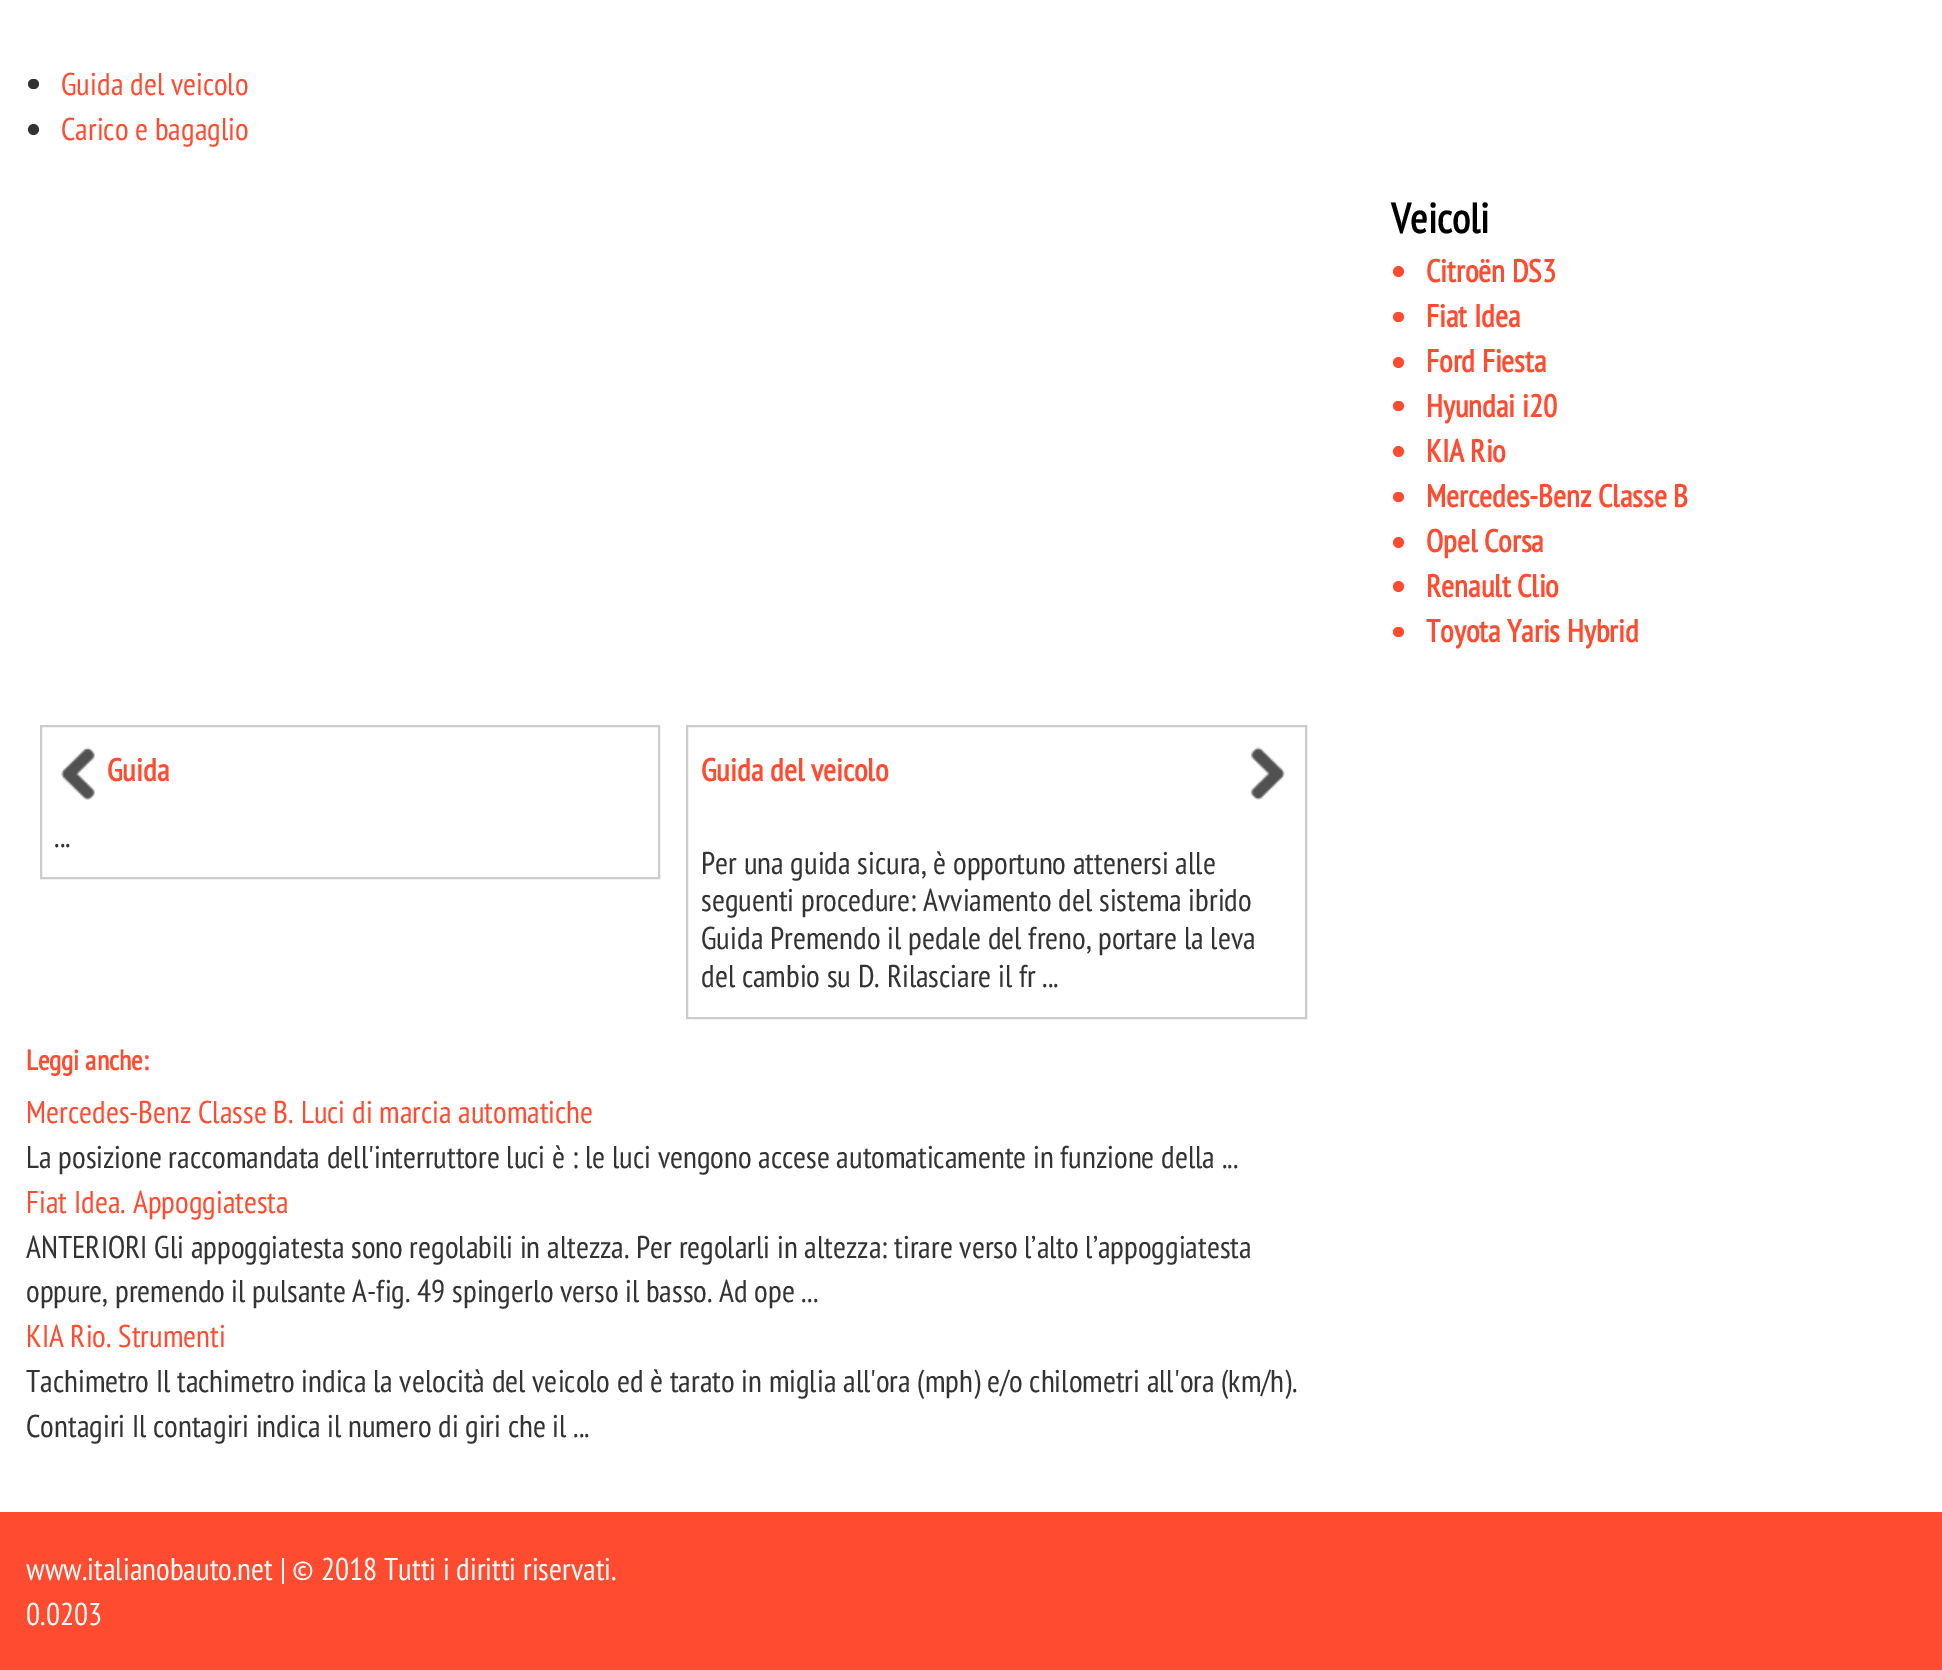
%!PS-Adobe-3.0
%%BoundingBox: 0 0 1942 1670
%%LanguageLevel: 3
%%Pages: 1
%%EndComments
%%BeginProlog
/f { fill } bind def
/w { setlinewidth } bind def
/fn { [ exch dup neg 0 0 3 -1 roll 0 0 ] selectfont } def
/tx { moveto show } def
/bx { rectfill } def
/ci { newpath 0 360 arc closepath } def
/rr { 5 dict begin { /r /h /w /y /x } { exch def } forall
  x r add y moveto x w add y 2 copy h add r arct x w add y h add x 1 index r arct
  x y h add x y r arct x y 2 copy exch w add exch r arct closepath end } def
/im { 5 dict begin { /h /w /y /x /name } { exch def } forall
  gsave x y translate w h scale
  w h 8 [w 0 0 h 0 0] name (r) file false 3 colorimage grestore end } def
%%EndProlog
%%BeginSetup
<< /PageSize [1942 1670] >> setpagedevice
%%EndSetup
%%Page: 1 1
0 1670 translate 1 -1 scale
4 setmiterlimit
1 setgray
0 0 1942 1670 bx
0.2 setgray
28 79 11 10 5 rr f
/PTSansNarrow-Regular 31.5 fn
1 0.298 0.188 setrgbcolor
(Guida del veicolo) 61 95 tx
0.2 setgray
33.5 129.5 5.5 ci f
1 0.298 0.188 setrgbcolor
(Carico e bagaglio) 61 140 tx
0.8 setgray
2 w
41 726 618 152 rectstroke
(image0.raw) 61 747 34 53 im
/PTSansNarrow-Bold 31.5 fn
1 0.298 0.188 setrgbcolor
(Guida) 107 781 tx
/PTSansNarrow-Regular 31.5 fn
0.2 setgray
(...) 54 847 tx
0.8 setgray
687 726 619 292 rectstroke
(image1.raw) 1250 747 35 53 im
/PTSansNarrow-Bold 31.5 fn
1 0.298 0.188 setrgbcolor
(Guida del veicolo) 701 781 tx
/PTSansNarrow-Regular 31.5 fn
0.2 setgray
(Per una guida sicura, è opportuno attenersi alle) 701 874 tx
(seguenti procedure: Avviamento del sistema ibrido) 701 911 tx
(Guida Premendo il pedale del freno, portare la leva) 701 949 tx
(del cambio su D. Rilasciare il fr ...) 701 987 tx
/PTSansNarrow-Bold 28 fn
1 0.298 0.188 setrgbcolor
(Leggi anche:) 26 1070 tx
/PTSansNarrow-Regular 31.5 fn
(Mercedes-Benz Classe B. Luci di marcia automatiche) 26 1123 tx
0.2 setgray
(La posizione raccomandata dell'interruttore luci è : le luci vengono accese automaticamente in funzione della ...) 26 1168 tx
1 0.298 0.188 setrgbcolor
(Fiat Idea. Appoggiatesta) 26 1213 tx
0.2 setgray
(ANTERIORI Gli appoggiatesta sono regolabili in altezza. Per regolarli in altezza: tirare verso l’alto l’appoggiatesta) 26 1258 tx
(oppure, premendo il pulsante A-fig. 49 spingerlo verso il basso. Ad ope ...) 26 1302 tx
1 0.298 0.188 setrgbcolor
(KIA Rio. Strumenti) 26 1347 tx
0.2 setgray
(Tachimetro Il tachimetro indica la velocità del veicolo ed è tarato in miglia all'ora \(mph\) e/o chilometri all'ora \(km/h\).) 26 1392 tx
(Contagiri Il contagiri indica il numero di giri che il ...) 26 1437 tx
/PTSansNarrow-Bold 42 fn
0 setgray
(Veicoli) 1391 233 tx
1 0.298 0.188 setrgbcolor
1398.5 271.5 5.5 ci f
/PTSansNarrow-Bold 31.5 fn
(Citroën DS3) 1426 282 tx
1393 312 11 10 5 rr f
(Fiat Idea) 1426 327 tx
1398.5 362.5 5.5 ci f
(Ford Fiesta) 1426 372 tx
1393 401 11 10 5 rr f
(Hyundai i20) 1426 417 tx
1398.5 451.5 5.5 ci f
(KIA Rio) 1426 462 tx
1393 492 11 10 5 rr f
(Mercedes-Benz Classe B) 1426 507 tx
1398.5 542.5 5.5 ci f
(Opel Corsa) 1426 552 tx
1398.5 586.5 5.5 ci f
(Renault Clio) 1426 597 tx
1393 627 11 10 5 rr f
(Toyota Yaris Hybrid) 1426 642 tx
0 1512 1942 158 bx
/PTSansNarrow-Regular 31.5 fn
1 setgray
(www.italianobauto.net | © 2018 Tutti i diritti riservati.) 26 1580 tx
(0.0203) 26 1625 tx
showpage
%%EOF
